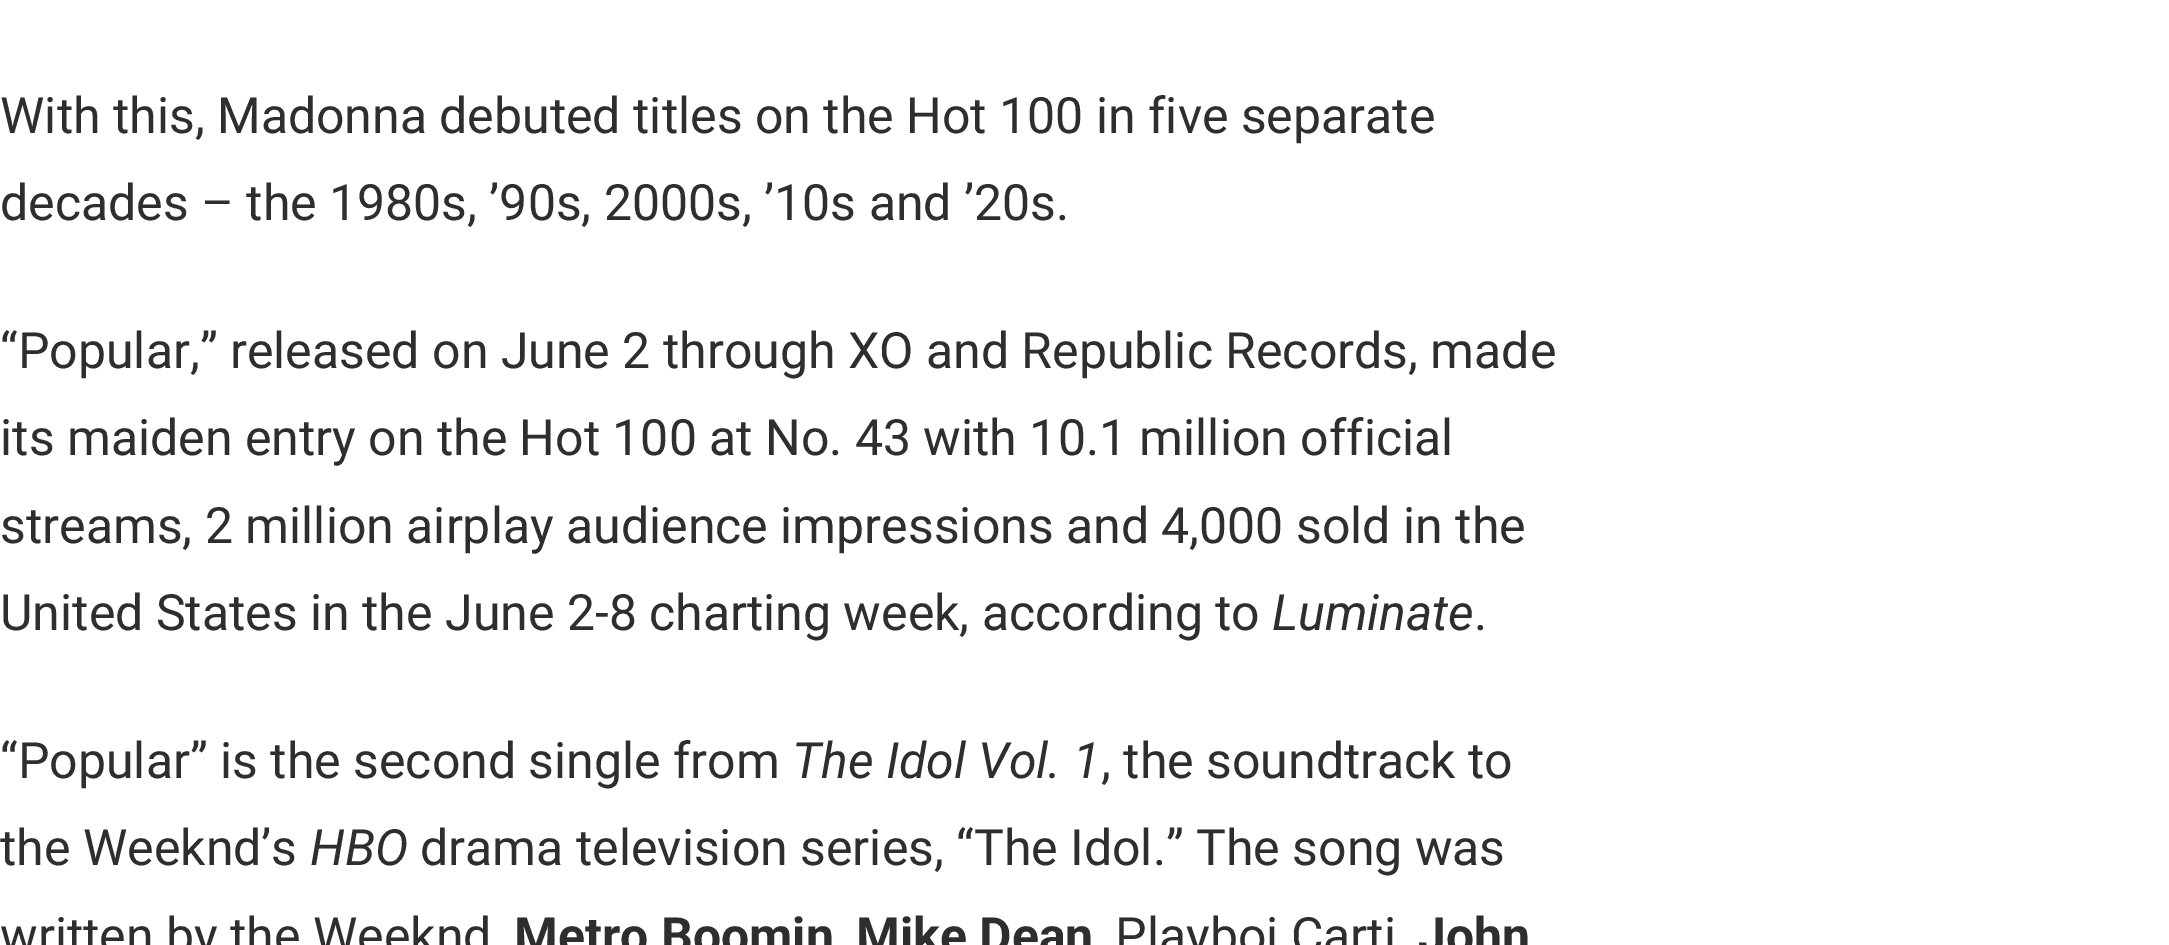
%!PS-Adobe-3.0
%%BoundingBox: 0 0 2169 945
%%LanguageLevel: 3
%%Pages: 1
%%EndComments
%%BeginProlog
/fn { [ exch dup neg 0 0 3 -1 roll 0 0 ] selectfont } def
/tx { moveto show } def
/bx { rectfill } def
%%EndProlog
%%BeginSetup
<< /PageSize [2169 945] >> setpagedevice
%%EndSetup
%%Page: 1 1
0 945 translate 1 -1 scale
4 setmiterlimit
1 setgray
0 0 2169 945 bx
/Roboto-Regular 50 fn
0.18 setgray
(With this, Madonna debuted titles on the Hot 100 in five separate) 0 133 tx
(decades – the 1980s, ’90s, 2000s, ’10s and ’20s.) 0 220 tx
(“Popular,” released on June 2 through XO and Republic Records, made) 0 368 tx
(its maiden entry on the Hot 100 at No. 43 with 10.1 million official) 0 455 tx
(streams, 2 million airplay audience impressions and 4,000 sold in the) 0 543 tx
(United States in the June 2-8 charting week, according to) 0 630 tx
/Roboto-Italic 50 fn
(Luminate) 1272 630 tx
/Roboto-Regular 50 fn
(.) 1474 630 tx
(“Popular” is the second single from) 0 778 tx
/Roboto-Italic 50 fn
(The Idol Vol. 1) 792 778 tx
/Roboto-Regular 50 fn
(, the soundtrack to) 1101 778 tx
(the Weeknd’s) 0 865 tx
/Roboto-Italic 50 fn
(HBO) 310 865 tx
/Roboto-Regular 50 fn
(drama television series, “The Idol.” The song was) 420 865 tx
(written by the Weeknd) 0 953 tx
/Roboto-Bold 50 fn
(Metro Boomin) 514 953 tx
(Mike Dean) 856 953 tx
/Roboto-Regular 50 fn
(Playboi Carti) 1115 953 tx
/Roboto-Bold 50 fn
(John) 1418 953 tx
showpage
%%EOF
